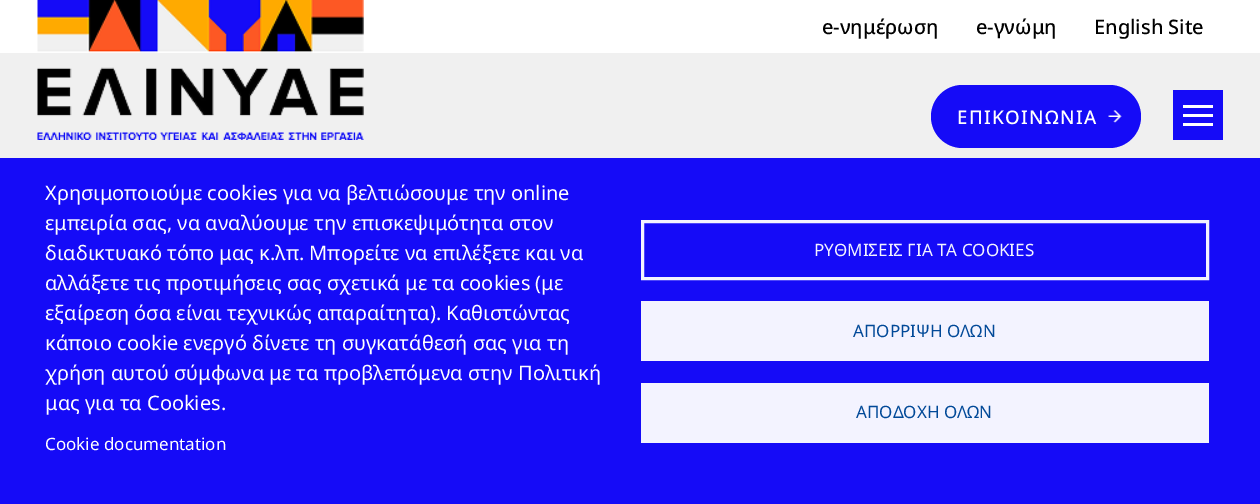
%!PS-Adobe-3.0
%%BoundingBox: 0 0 1260 504
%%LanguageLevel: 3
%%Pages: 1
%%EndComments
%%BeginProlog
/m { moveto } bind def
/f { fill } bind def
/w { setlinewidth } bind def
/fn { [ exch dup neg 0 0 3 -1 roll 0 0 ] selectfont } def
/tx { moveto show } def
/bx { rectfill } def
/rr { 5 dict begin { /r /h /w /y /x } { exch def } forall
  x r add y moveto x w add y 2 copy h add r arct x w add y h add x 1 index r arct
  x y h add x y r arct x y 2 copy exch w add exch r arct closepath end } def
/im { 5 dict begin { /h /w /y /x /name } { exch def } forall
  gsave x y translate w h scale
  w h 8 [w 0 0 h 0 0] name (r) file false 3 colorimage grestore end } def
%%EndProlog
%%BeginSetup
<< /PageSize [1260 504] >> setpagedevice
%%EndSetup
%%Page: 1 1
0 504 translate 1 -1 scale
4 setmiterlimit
0.941 setgray
0 0 1260 504 bx
1 setgray
0 0 1260 53 bx
/NotoSans-Medium 20 fn
0 setgray
(e-νημέρωση) 822 34 tx
(e-γνώμη) 976 34 tx
(English Site) 1094 34 tx
(image0.raw) 37 0 327 140 im
0.082 0.043 0.969 setrgbcolor
931 85 210 63 31.5 rr f
/NotoSans-Medium 18.75 fn
1 setgray
957 124 m 1.4 0 (ΕΠΙΚΟΙΝΩΝΙΑ) ashow
(image1.raw) 1108 110 14 13 im
0.082 0.043 0.969 setrgbcolor
1173 90 50 50 bx
1 setgray
1183 105 30 3 bx
1183 114 30 3 bx
1183 123 30 3 bx
0.082 0.043 0.969 setrgbcolor
0 158 1260 346 bx
/NotoSans-Regular 20 fn
1 setgray
(Χρησιμοποιούμε cookies για να βελτιώσουμε την online) 45 200 tx
(εμπειρία σας, να αναλύουμε την επισκεψιμότητα στον) 45 230 tx
(διαδικτυακό τόπο μας κ.λπ. Μπορείτε να επιλέξετε και να) 45 260 tx
(αλλάξετε τις προτιμήσεις σας σχετικά με τα cookies \(με) 45 290 tx
(εξαίρεση όσα είναι τεχνικώς απαραίτητα\). Καθιστώντας) 45 320 tx
(κάποιο cookie ενεργό δίνετε τη συγκατάθεσή σας για τη) 45 350 tx
(χρήση αυτού σύμφωνα με τα προβλεπόμενα στην Πολιτική) 45 380 tx
(μας για τα Cookies.) 45 410 tx
/NotoSans-Regular 17 fn
(Cookie documentation) 45 450 tx
0.953 0.953 1 setrgbcolor
3 w
642.5 221.5 565 57 rectstroke
(ΡΥΘΜΙΣΕΙΣ ΓΙΑ ΤΑ COOKIES) 814 256 tx
641 301 568 60 bx
0.004 0.286 0.596 setrgbcolor
(ΑΠΟΡΡΙΨΗ ΟΛΩΝ) 853 337 tx
0.953 0.953 1 setrgbcolor
641 383 568 60 bx
0.004 0.286 0.596 setrgbcolor
(ΑΠΟΔΟΧΗ ΟΛΩΝ) 856 418 tx
showpage
%%EOF
